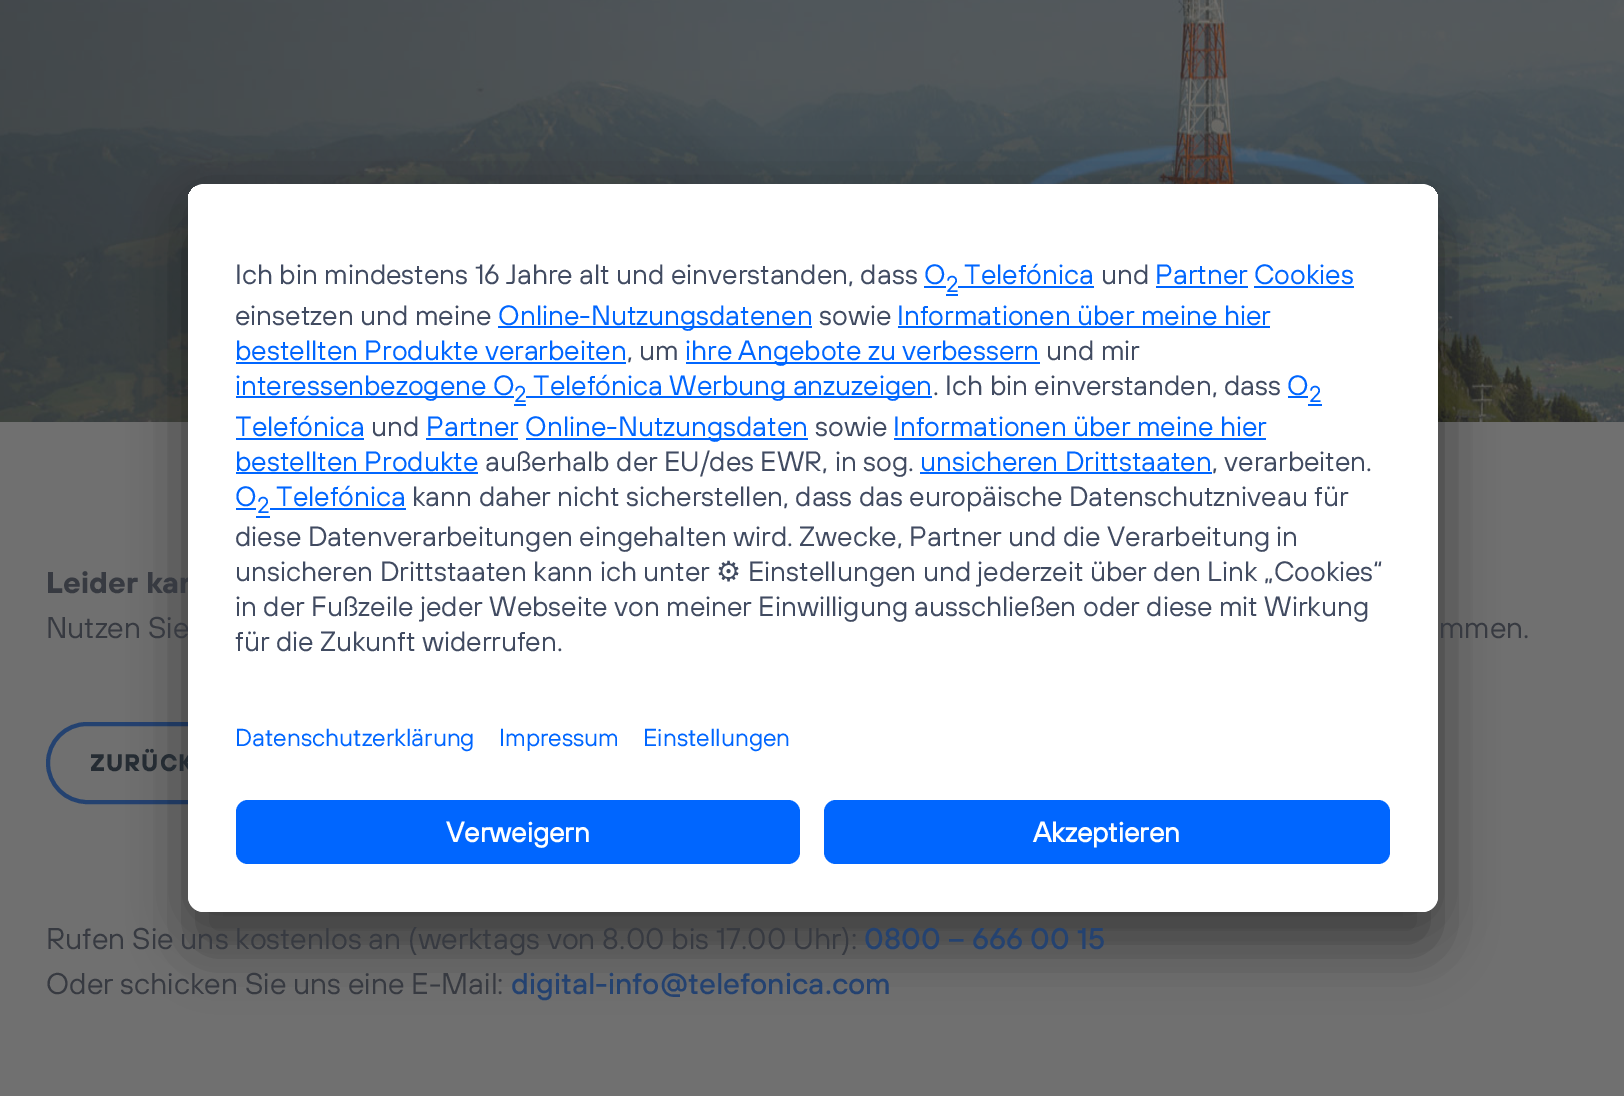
%!PS-Adobe-3.0
%%BoundingBox: 0 0 1624 1096
%%LanguageLevel: 3
%%Pages: 1
%%EndComments
%%BeginProlog
/m { moveto } bind def
/l { lineto } bind def
/c { curveto } bind def
/h { closepath } bind def
/f { fill } bind def
/S { stroke } bind def
/q { gsave } bind def
/Q { grestore } bind def
/w { setlinewidth } bind def
/fn { [ exch dup neg 0 0 3 -1 roll 0 0 ] selectfont } def
/tx { moveto show } def
/bx { rectfill } def
/al { dup .setfillconstantalpha .setstrokeconstantalpha } def
/rr { 5 dict begin { /r /h /w /y /x } { exch def } forall
  x r add y moveto x w add y 2 copy h add r arct x w add y h add x 1 index r arct
  x y h add x y r arct x y 2 copy exch w add exch r arct closepath end } def
/sh { 12 dict begin { /a /b /q /h /w /y /x } { exch def } forall gsave /was 0 def
  9 -2 -9 { dup b mul 4 div /e exch def 1 sub .425 mul 2.718 exch exp 1 add a .99 .min exch div /now exch def
    1 1 now sub 1 was sub div sub al /was now def
    w h .min e 2 mul add 0 gt { x e sub y e sub w e 2 mul add h e 2 mul add
      q e add b .6 mul add w h .min 2 div e add .min 0 .max rr fill } if } for grestore end } def
/im { 5 dict begin { /h /w /y /x /name } { exch def } forall
  gsave x y translate w h scale
  w h 8 [w 0 0 h 0 0] name (r) file false 3 colorimage grestore end } def
%%EndProlog
%%BeginSetup
<< /PageSize [1624 1096] /PageUsesTransparency true >> setpagedevice
%%EndSetup
%%Page: 1 1
0 .pushpdf14devicefilter
0 1096 translate 1 -1 scale
4 setmiterlimit
0.439 setgray
0 0 1624 1096 bx
(image0.raw) 0 0 1624 422 im
0.141 0.259 0.439 setrgbcolor
4 w
48 724 408 78 39 rr S
0 setgray
188 224 1250 728 16 28 0.3 sh
188 194 1250 728 16 26 0.22 sh
/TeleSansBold-Bold 30 fn
0.216 0.227 0.255 setrgbcolor
(Leider kan) 46 593 tx
/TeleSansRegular-Regular 30 fn
(Nutzen Sie) 46 638 tx
/TeleSansBold-Bold 24 fn
0.145 0.173 0.2 setrgbcolor
90 771 m 1 0 (ZURÜCK) ashow
1 setgray
188 184 1250 728 16 rr f
q
188 184 1250 728 16 rr clip newpath
204 184 m 1422 184 l 1431 184 1438 191 1438 200 c 1438 784 l 188 784 l 188 200 l 188 191 195 184 204 184 c h clip newpath
188 186 1250 598 bx
Q
/TeleSansRegular-Regular 28 fn
0.255 0.294 0.38 setrgbcolor
(Ich bin mindestens 16 Jahre alt und einverstanden, dass) 235 284 tx
0 0.4 1 setrgbcolor
(O) 924 284 tx
/TeleSansRegular-Regular 23 fn
(2) 946 292 tx
924 286 22 2 bx
946 294 12 2 bx
958 286 136 2 bx
/TeleSansRegular-Regular 28 fn
(Telefónica) 964 284 tx
0.255 0.294 0.38 setrgbcolor
(und) 1101 284 tx
0 0.4 1 setrgbcolor
(Partner Cookies) 1155 284 tx
1156 286 92 2 bx
1254 286 100 2 bx
0.255 0.294 0.38 setrgbcolor
(einsetzen und meine) 235 325 tx
0 0.4 1 setrgbcolor
498 326 314 2 bx
(Online-Nutzungsdatenen) 498 325 tx
0.255 0.294 0.38 setrgbcolor
(sowie) 819 325 tx
0 0.4 1 setrgbcolor
(Informationen über meine hier) 897 325 tx
898 326 372 2 bx
(bestellten Produkte verarbeiten) 235 360 tx
236 362 390 2 bx
0.255 0.294 0.38 setrgbcolor
(, um) 627 360 tx
0 0.4 1 setrgbcolor
686 362 354 2 bx
(ihre Angebote zu verbessern) 685 360 tx
0.255 0.294 0.38 setrgbcolor
(und mir) 1046 360 tx
0 0.4 1 setrgbcolor
236 396 278 2 bx
(interessenbezogene O) 235 395 tx
/TeleSansRegular-Regular 23 fn
(2) 514 402 tx
514 404 12 2 bx
526 396 406 2 bx
/TeleSansRegular-Regular 28 fn
(Telefónica Werbung anzuzeigen) 533 395 tx
0.255 0.294 0.38 setrgbcolor
(. Ich bin einverstanden, dass) 933 395 tx
0 0.4 1 setrgbcolor
(O) 1287 395 tx
/TeleSansRegular-Regular 23 fn
(2) 1309 402 tx
1288 396 20 2 bx
1308 404 14 2 bx
q
236 250 1154 418 rectclip
/TeleSansRegular-Regular 28 fn
(Telefónica) 235 436 tx
Q
236 438 128 2 bx
/TeleSansRegular-Regular 28 fn
0.255 0.294 0.38 setrgbcolor
(und) 371 436 tx
0 0.4 1 setrgbcolor
(Partner) 426 436 tx
426 438 92 2 bx
526 438 282 2 bx
(Online-Nutzungsdaten) 525 436 tx
0.255 0.294 0.38 setrgbcolor
(sowie) 815 436 tx
0 0.4 1 setrgbcolor
(Informationen über meine hier) 893 436 tx
894 438 372 2 bx
(bestellten Produkte) 235 471 tx
236 472 242 2 bx
0.255 0.294 0.38 setrgbcolor
(außerhalb der EU/des EWR, in sog.) 485 471 tx
0 0.4 1 setrgbcolor
(unsicheren Drittstaaten) 920 471 tx
920 472 292 2 bx
0.255 0.294 0.38 setrgbcolor
(, verarbeiten.) 1212 471 tx
0 0.4 1 setrgbcolor
(O) 235 506 tx
/TeleSansRegular-Regular 23 fn
(2) 257 513 tx
236 508 20 2 bx
256 516 14 2 bx
270 508 136 2 bx
/TeleSansRegular-Regular 28 fn
(Telefónica) 276 506 tx
0.255 0.294 0.38 setrgbcolor
(kann daher nicht sicherstellen, dass das europäische Datenschutzniveau für) 412 506 tx
(diese Datenverarbeitungen eingehalten wird. Zwecke, Partner und die Verarbeitung in) 235 546 tx
(unsicheren Drittstaaten kann ich unter) 235 581 tx
/DejaVuSans-Regular 28 fn
(⚙) 716 581 tx
/TeleSansRegular-Regular 28 fn
(Einstellungen und jederzeit über den Link „Cookies“) 748 581 tx
(in der Fußzeile jeder Webseite von meiner Einwilligung ausschließen oder diese mit Wirkung) 235 616 tx
(für die Zukunft widerrufen.) 235 651 tx
/TeleSansRegular-Regular 24.5 fn
0 0.4 1 setrgbcolor
(Datenschutzerklärung) 235 746 tx
(Impressum) 499 746 tx
(Einstellungen) 643 746 tx
1 setgray
188 784 m 1438 784 l 1438 896 l 1438 905 1431 912 1422 912 c 204 912 l 195 912 188 905 188 896 c h f
0 0.4 1 setrgbcolor
236 800 564 64 12 rr f
/TeleSansRegular-Bold 28 fn
1 setgray
(Verweigern) 446 842 tx
0 0.4 1 setrgbcolor
824 800 566 64 12 rr f
1 setgray
(Akzeptieren) 1033 842 tx
/TeleSansRegular-Regular 30 fn
0.216 0.227 0.255 setrgbcolor
(mmen.) 1439 638 tx
(Rufen Sie uns kostenlos an \(werktags von 8.00 bis 17.00 Uhr\):) 46 949 tx
/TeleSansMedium-Medium 30 fn
0.141 0.259 0.439 setrgbcolor
(0800 – 666 00 15) 864 949 tx
/TeleSansRegular-Regular 30 fn
0.216 0.227 0.255 setrgbcolor
(Oder schicken Sie uns eine E-Mail:) 46 994 tx
/TeleSansMedium-Medium 30 fn
0.141 0.259 0.439 setrgbcolor
(digital-info@telefonica.com) 511 994 tx
.poppdf14devicefilter showpage
%%EOF
